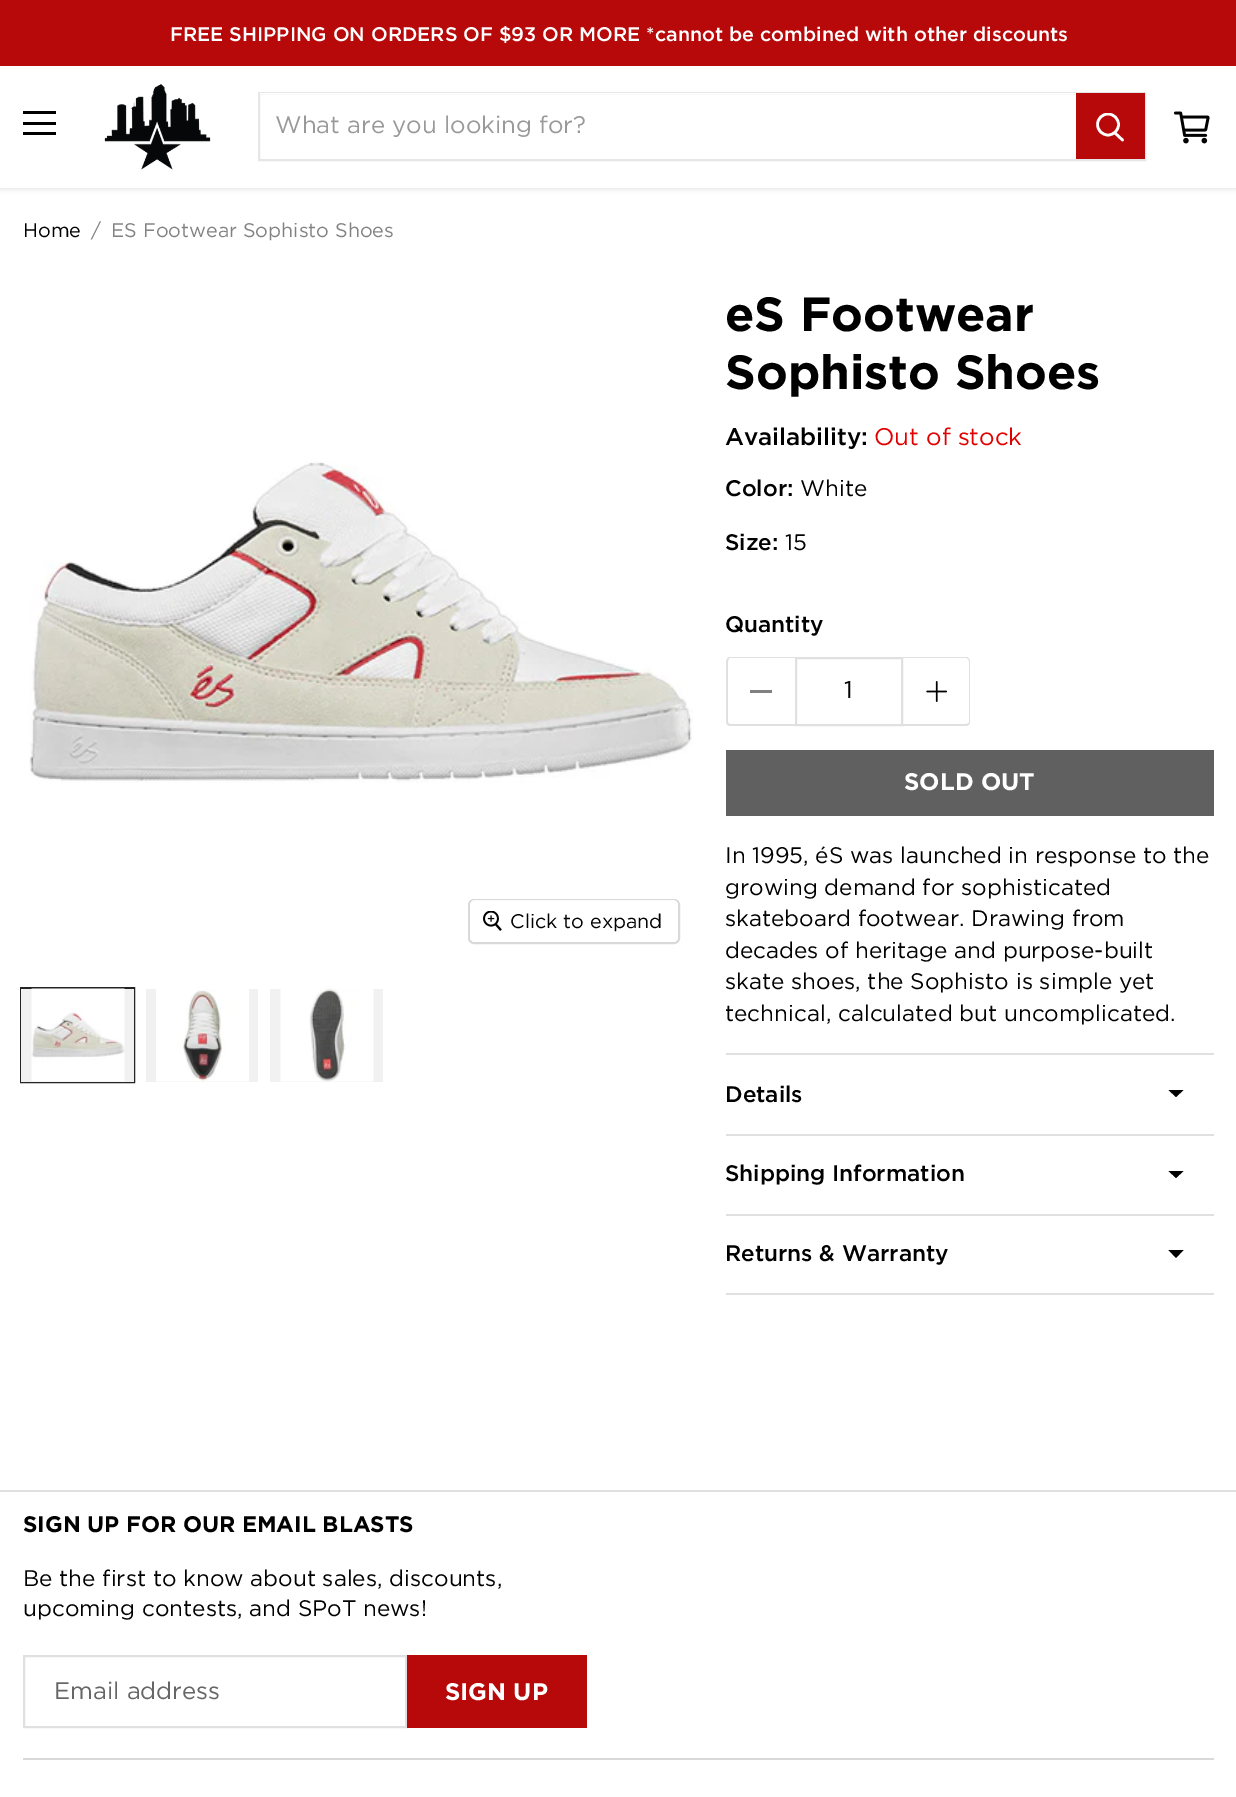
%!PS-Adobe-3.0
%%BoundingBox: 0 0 1236 1797
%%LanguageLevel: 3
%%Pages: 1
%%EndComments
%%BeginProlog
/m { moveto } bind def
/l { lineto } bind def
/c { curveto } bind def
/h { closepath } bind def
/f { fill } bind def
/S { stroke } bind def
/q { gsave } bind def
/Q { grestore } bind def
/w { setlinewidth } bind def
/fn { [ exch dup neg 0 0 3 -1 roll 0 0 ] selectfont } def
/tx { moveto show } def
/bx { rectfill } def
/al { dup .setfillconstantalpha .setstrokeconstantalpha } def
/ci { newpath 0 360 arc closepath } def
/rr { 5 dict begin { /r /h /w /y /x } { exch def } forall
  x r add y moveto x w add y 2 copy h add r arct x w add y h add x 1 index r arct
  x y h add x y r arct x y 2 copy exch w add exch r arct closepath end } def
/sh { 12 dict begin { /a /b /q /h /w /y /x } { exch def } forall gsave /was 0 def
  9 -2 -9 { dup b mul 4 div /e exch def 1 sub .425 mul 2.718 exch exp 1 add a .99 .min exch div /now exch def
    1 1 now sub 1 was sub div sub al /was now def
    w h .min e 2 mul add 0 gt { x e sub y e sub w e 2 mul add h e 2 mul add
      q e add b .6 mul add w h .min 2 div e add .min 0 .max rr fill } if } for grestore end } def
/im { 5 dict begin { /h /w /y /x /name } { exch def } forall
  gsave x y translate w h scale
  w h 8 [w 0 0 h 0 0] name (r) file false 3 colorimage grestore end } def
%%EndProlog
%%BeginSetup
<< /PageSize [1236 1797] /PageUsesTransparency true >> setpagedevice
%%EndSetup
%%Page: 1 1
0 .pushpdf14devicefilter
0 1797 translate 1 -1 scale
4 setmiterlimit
1 setgray
0 0 1236 1797 bx
0.502 setgray
0 68 1236 121 0 3 0.25 sh
0.718 0.035 0.035 setrgbcolor
0 0 1236 66 bx
/Gotham-Medium 19.7 fn
1 setgray
(FREE SHIPPING ON ORDERS OF $93 OR MORE *cannot be combined with other discounts) 170 41 tx
0 66 1236 122 bx
0 setgray
23 111 33 3 bx
23 122 33 3 bx
23 132 33 3 bx
(image0.raw) 104 84 107 86 im
0.902 setgray
2 w
259 93 886 67 rectstroke
1 setgray
260 93 816 1 bx
/Gotham-Regular 24 fn
0.6 setgray
(What are you looking for?) 275 133 tx
0.718 0.035 0.035 setrgbcolor
1076 93 69 66 bx
1 setgray
2.6 w
1 setlinecap
1122.5 140 m 1115 133 l S
q
1095 113 30 31 rectclip
0 setlinecap
1108 124.5 10.5 ci S
Q
(image1.raw) 1174 111 36 33 im
/Gotham-Regular 19.7 fn
0 setgray
(Home) 23 237 tx
0.51 setgray
(/) 91 237 tx
(ES Footwear Sophisto Shoes) 111 237 tx
(image2.raw) 29 461 664 322 im
0.851 setgray
2 w
0 setlinecap
469 900 210 43 5 rr S
0.9 al
1 setgray
470 900 208 42 5 rr f
1 al
(image3.raw) 483 911 19 20 im
0 setgray
(Click to expand) 510 928 tx
0.141 setgray
21 988 113 94 rectstroke
0.945 setgray
21 989 113 93 bx
(image4.raw) 31 988 94 94 im
146 989 112 93 bx
(image5.raw) 156 989 93 93 im
270 989 113 93 bx
(image6.raw) 280 988 94 94 im
/Gotham-Bold 48 fn
0 setgray
(eS Footwear) 725 331 tx
(Sophisto Shoes) 725 389 tx
/Gotham-Medium 24 fn
(Availability:) 725 445 tx
/Gotham-Regular 24 fn
0.882 0 0 setrgbcolor
(Out of stock) 874 445 tx
/Gotham-Medium 22.5 fn
0 setgray
(Color:) 725 496 tx
/Gotham-Regular 22.5 fn
(White) 800 496 tx
/Gotham-Medium 22.5 fn
(Size:) 725 550 tx
/Gotham-Regular 22.5 fn
(15) 785 550 tx
/Gotham-Medium 22.5 fn
(Quantity) 725 632 tx
0.878 setgray
730 657 m 795 657 l 795 726 l 730 726 l 728 726 726 724 726 722 c 726 662 l 726 659 728 657 730 657 c h 730 658 m 795 658 l 795 724 l 730 724 l 729 724 728 723 728 722 c 728 662 l 728 660 729 658 730 658 c h eofill
0.502 setgray
750 690 22 3 bx
0.878 setgray
796 658 106 67 rectstroke
/Gotham-Regular 24 fn
0 setgray
(1) 844 698 tx
0.878 setgray
903 657 m 966 657 l 968 657 970 659 970 662 c 970 722 l 970 724 968 726 966 726 c 903 726 l h 903 658 m 966 658 l 968 658 969 660 969 662 c 969 722 l 969 723 968 724 966 724 c 903 724 l h eofill
(image7.raw) 926 681 21 21 im
0.376 setgray
726 750 488 66 bx
/Gotham-Bold 24 fn
1 setgray
(SOLD OUT) 904 790 tx
/Gotham-Regular 22.5 fn
0 setgray
(In 1995, éS was launched in response to the) 725 863 tx
(growing demand for sophisticated) 725 895 tx
(skateboard footwear. Drawing from) 725 926 tx
(decades of heritage and purpose-built) 725 958 tx
(skate shoes, the Sophisto is simple yet) 725 989 tx
(technical, calculated but uncomplicated.) 725 1021 tx
0.878 setgray
726 1053 488 2 bx
726 1134 488 2 bx
/Gotham-Medium 22.5 fn
0 setgray
(Details) 725 1102 tx
1183.5 1090 m 1176 1097 l 1168.5 1090 l h f
0.878 setgray
726 1214 488 2 bx
0 setgray
(Shipping Information) 725 1181 tx
1183.5 1171 m 1176 1178 l 1168.5 1171 l h f
0.878 setgray
726 1293 488 2 bx
0 setgray
(Returns & Warranty) 725 1261 tx
1183.5 1250 m 1176 1258 l 1168.5 1250 l h f
0.878 setgray
0 1490 1236 2 bx
0.851 setgray
23 1758 1191 2 bx
/Gotham-Bold 22.5 fn
0 setgray
(SIGN UP FOR OUR EMAIL BLASTS) 23 1532 tx
/Gotham-Regular 22.5 fn
(Be the first to know about sales, discounts,) 23 1586 tx
(upcoming contests, and SPoT news!) 23 1616 tx
0.878 setgray
24 1656 382 71 rectstroke
/Gotham-Regular 24 fn
0.4 setgray
(Email address) 54 1699 tx
0.718 0.035 0.035 setrgbcolor
407 1655 180 73 bx
/Gotham-Bold 24 fn
1 setgray
(SIGN UP) 445 1700 tx
.poppdf14devicefilter showpage
%%EOF
